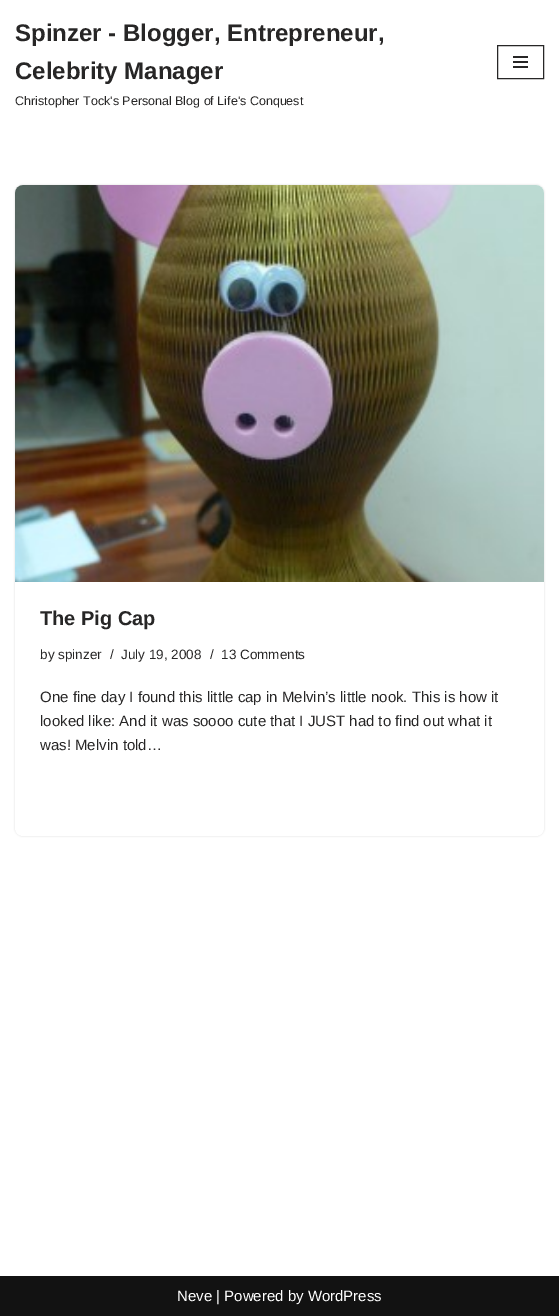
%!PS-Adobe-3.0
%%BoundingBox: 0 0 559 1316
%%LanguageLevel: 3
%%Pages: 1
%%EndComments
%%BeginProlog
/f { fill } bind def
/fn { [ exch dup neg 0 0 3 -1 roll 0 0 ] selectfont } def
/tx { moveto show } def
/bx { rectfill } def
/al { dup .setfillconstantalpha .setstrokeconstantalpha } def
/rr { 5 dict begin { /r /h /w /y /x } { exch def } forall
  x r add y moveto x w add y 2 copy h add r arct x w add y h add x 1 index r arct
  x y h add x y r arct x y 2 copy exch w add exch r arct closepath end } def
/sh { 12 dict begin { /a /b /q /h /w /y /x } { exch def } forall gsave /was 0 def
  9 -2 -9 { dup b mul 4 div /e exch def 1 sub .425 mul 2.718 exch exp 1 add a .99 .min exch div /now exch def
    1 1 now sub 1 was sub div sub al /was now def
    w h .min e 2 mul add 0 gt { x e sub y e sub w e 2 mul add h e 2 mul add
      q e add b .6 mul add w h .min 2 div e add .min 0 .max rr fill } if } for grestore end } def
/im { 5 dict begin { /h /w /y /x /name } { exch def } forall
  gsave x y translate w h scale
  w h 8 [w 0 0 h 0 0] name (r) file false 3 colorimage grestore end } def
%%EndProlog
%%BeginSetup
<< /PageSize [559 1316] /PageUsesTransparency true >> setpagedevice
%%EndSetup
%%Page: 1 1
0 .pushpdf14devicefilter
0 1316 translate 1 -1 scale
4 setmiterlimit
1 setgray
0 0 559 1316 bx
/LiberationSans-Bold 24 fn
0.153 0.149 0.149 setrgbcolor
(Spinzer - Blogger, Entrepreneur,) 15 41 tx
(Celebrity Manager) 15 79 tx
/LiberationSans-Regular 12.5 fn
(Christopher Tock's Personal Blog of Life's Conquest) 15 105 tx
497.5 45.5 46 33 rectstroke
513 56 15 2 bx
513 61 15 2 bx
513 66 15 2 bx
0 setgray
15 185 529 651 8 1 0.15 sh
1 setgray
15 185 529 651 8 rr f
(image0.raw) 15 185 529 397 im
/LiberationSans-Bold 20 fn
0.153 0.149 0.149 setrgbcolor
(The Pig Cap) 40 625 tx
/LiberationSans-Regular 13.5 fn
(by spinzer) 40 659 tx
(/) 110 659 tx
(July 19, 2008) 121 659 tx
(/) 210 659 tx
(13 Comments) 221 659 tx
/LiberationSans-Regular 15 fn
(One fine day I found this little cap in Melvin’s little nook. This is how it) 40 702 tx
(looked like: And it was soooo cute that I JUST had to find out what it) 40 726 tx
(was! Melvin told…) 40 750 tx
0.071 setgray
0 1276 559 40 bx
1 setgray
(Neve | Powered by WordPress) 177 1301 tx
.poppdf14devicefilter showpage
%%EOF
